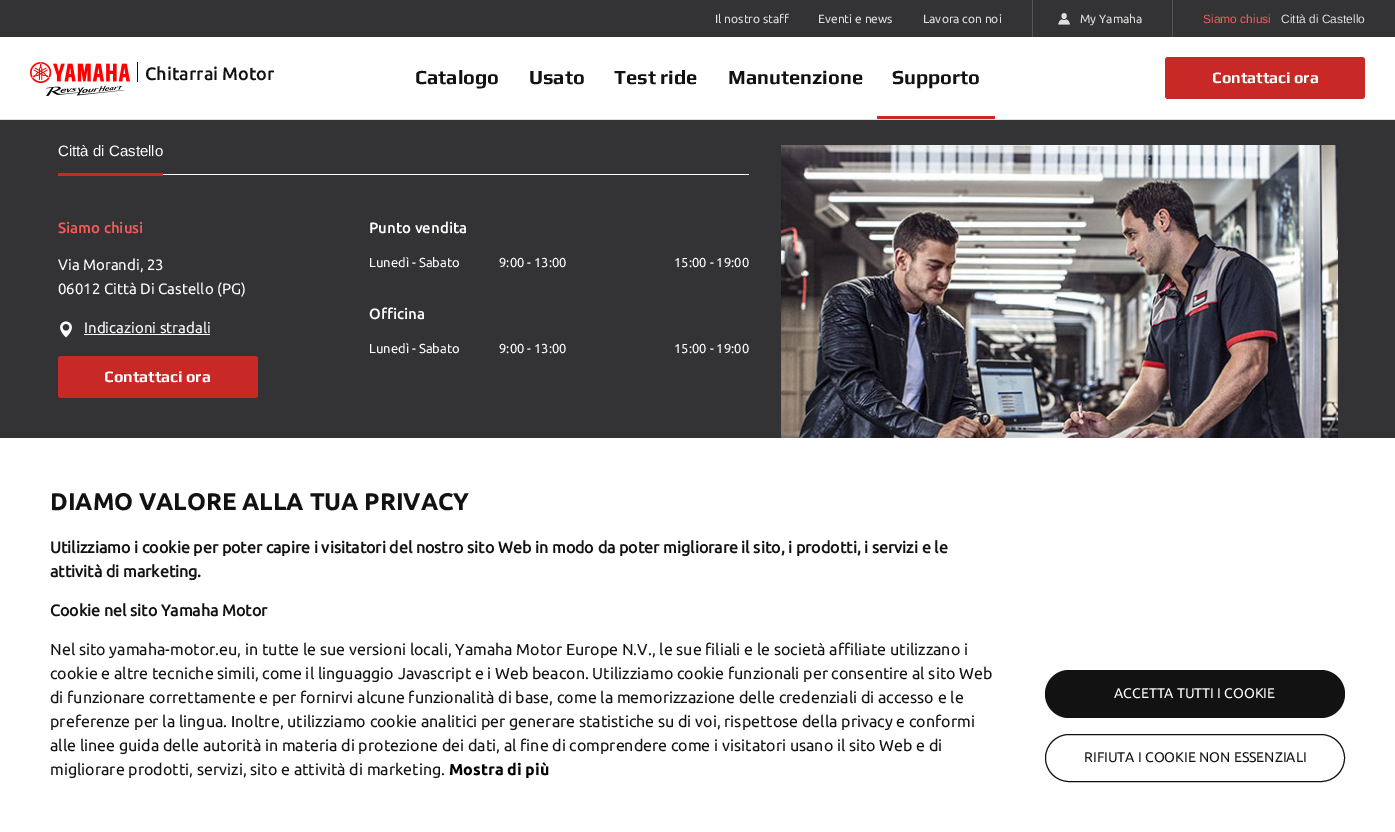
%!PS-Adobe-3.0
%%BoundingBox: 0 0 1395 832
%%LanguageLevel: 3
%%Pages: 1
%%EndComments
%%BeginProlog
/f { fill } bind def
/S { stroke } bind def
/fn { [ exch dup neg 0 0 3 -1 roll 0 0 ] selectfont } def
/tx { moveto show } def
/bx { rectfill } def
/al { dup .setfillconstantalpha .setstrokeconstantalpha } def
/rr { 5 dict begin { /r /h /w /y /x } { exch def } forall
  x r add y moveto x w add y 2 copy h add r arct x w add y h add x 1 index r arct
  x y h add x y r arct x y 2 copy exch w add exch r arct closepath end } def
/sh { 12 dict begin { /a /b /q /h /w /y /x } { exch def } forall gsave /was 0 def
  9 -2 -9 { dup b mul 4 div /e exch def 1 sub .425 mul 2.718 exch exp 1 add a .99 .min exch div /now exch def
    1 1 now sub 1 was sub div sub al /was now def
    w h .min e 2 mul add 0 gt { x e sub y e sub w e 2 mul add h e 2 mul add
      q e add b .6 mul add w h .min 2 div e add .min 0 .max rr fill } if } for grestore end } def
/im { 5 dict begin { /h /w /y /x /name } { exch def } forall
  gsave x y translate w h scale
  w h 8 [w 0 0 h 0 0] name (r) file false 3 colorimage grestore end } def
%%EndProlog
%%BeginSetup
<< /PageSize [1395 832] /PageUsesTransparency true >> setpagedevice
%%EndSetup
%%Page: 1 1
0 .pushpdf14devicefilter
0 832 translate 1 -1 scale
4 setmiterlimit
0.2 0.2 0.208 setrgbcolor
0 0 1395 832 bx
0.875 setgray
0 119 1395 1 bx
/Ubuntu-Regular 12 fn
(Il nostro staff) 715 23 tx
(Eventi e news) 818 23 tx
(Lavora con noi) 923 23 tx
0.337 setgray
1032 0 1 37 bx
(image0.raw) 1058 13 12 12 im
0.875 setgray
(My Yamaha) 1080 23 tx
0.337 setgray
1172 0 1 37 bx
/LiberationSans-Regular 12 fn
0.973 0.353 0.341 setrgbcolor
(Siamo chiusi) 1203 23 tx
0.875 setgray
(Città di Castello) 1281 23 tx
1 setgray
0 37 1395 82 bx
(image1.raw) 30 62 100 34 im
0.071 setgray
137 62 1 20 bx
/Ubuntu-Medium 18 fn
(Chitarrai Motor) 145 80 tx
/Play-Bold 20 fn
(Catalogo) 415 84 tx
(Usato) 529 84 tx
(Test ride) 614 84 tx
(Manutenzione) 728 84 tx
(Supporto) 892 84 tx
0.784 0.161 0.149 setrgbcolor
877 116 118 3 bx
1165 57 200 42 3 rr f
/Play-Bold 16 fn
1 setgray
(Contattaci ora) 1212 83 tx
163 174 586 1 bx
/LiberationSans-Regular 15 fn
(Città di Castello) 58 156 tx
0.784 0.161 0.149 setrgbcolor
58 173 105 3 bx
/Ubuntu-Medium 15 fn
0.973 0.353 0.341 setrgbcolor
(Siamo chiusi) 58 233 tx
/Ubuntu-Regular 15 fn
1 setgray
(Via Morandi, 23) 58 270 tx
(06012 Città Di Castello \(PG\)) 58 294 tx
(image2.raw) 60 321 12 17 im
(Indicazioni stradali) 84 333 tx
84 334 126 1 bx
0.784 0.161 0.149 setrgbcolor
58 356 200 42 3 rr f
/Play-Bold 16 fn
1 setgray
(Contattaci ora) 104 382 tx
/Ubuntu-Medium 15 fn
(Punto vendita) 369 233 tx
/Ubuntu-Regular 13 fn
(Lunedì - Sabato) 369 267 tx
(9:00 - 13:00) 499 267 tx
(15:00 - 19:00) 674 267 tx
/Ubuntu-Medium 15 fn
(Officina) 369 319 tx
/Ubuntu-Regular 13 fn
(Lunedì - Sabato) 369 353 tx
(9:00 - 13:00) 499 353 tx
(15:00 - 19:00) 674 353 tx
(image3.raw) 781 145 557 293 im
0.224 setgray
0 428 1395 394 0 15 0.1 sh
1 setgray
0 438 1395 394 bx
/Ubuntu-Bold 24 fn
0.071 setgray
(DIAMO VALORE ALLA TUA PRIVACY) 50 510 tx
/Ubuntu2-Bold 16 fn
(Utilizziamo i cookie per poter capire i visitatori del nostro sito Web in modo da poter migliorare il sito, i prodotti, i servizi e le) 50 553 tx
(attività di marketing.) 50 577 tx
(Cookie nel sito Yamaha Motor) 50 616 tx
/Ubuntu-Regular 16 fn
(Nel sito yamaha-motor.eu, in tutte le sue versioni locali, Yamaha Motor Europe N.V., le sue filiali e le società affiliate utilizzano i) 50 655 tx
(cookie e altre tecniche simili, come il linguaggio Javascript e i Web beacon. Utilizziamo cookie funzionali per consentire al sito Web) 50 679 tx
(di funzionare correttamente e per fornirvi alcune funzionalità di base, come la memorizzazione delle credenziali di accesso e le) 50 703 tx
(preferenze per la lingua. Inoltre, utilizziamo cookie analitici per generare statistiche su di voi, rispettose della privacy e conformi) 50 727 tx
(alle linee guida delle autorità in materia di protezione dei dati, al fine di comprendere come i visitatori usano il sito Web e di) 50 751 tx
(migliorare prodotti, servizi, sito e attività di marketing.) 50 775 tx
/Ubuntu-Bold 16 fn
0 setgray
(Mostra di più) 449 775 tx
0.071 setgray
1045 670 300 48 24 rr f
/Ubuntu-Regular 14 fn
1 setgray
(ACCETTA TUTTI I COOKIE) 1114 698 tx
0.071 setgray
1045.5 734.5 299 47 23.5 rr S
(RIFIUTA I COOKIE NON ESSENZIALI) 1084 762 tx
.poppdf14devicefilter showpage
%%EOF
